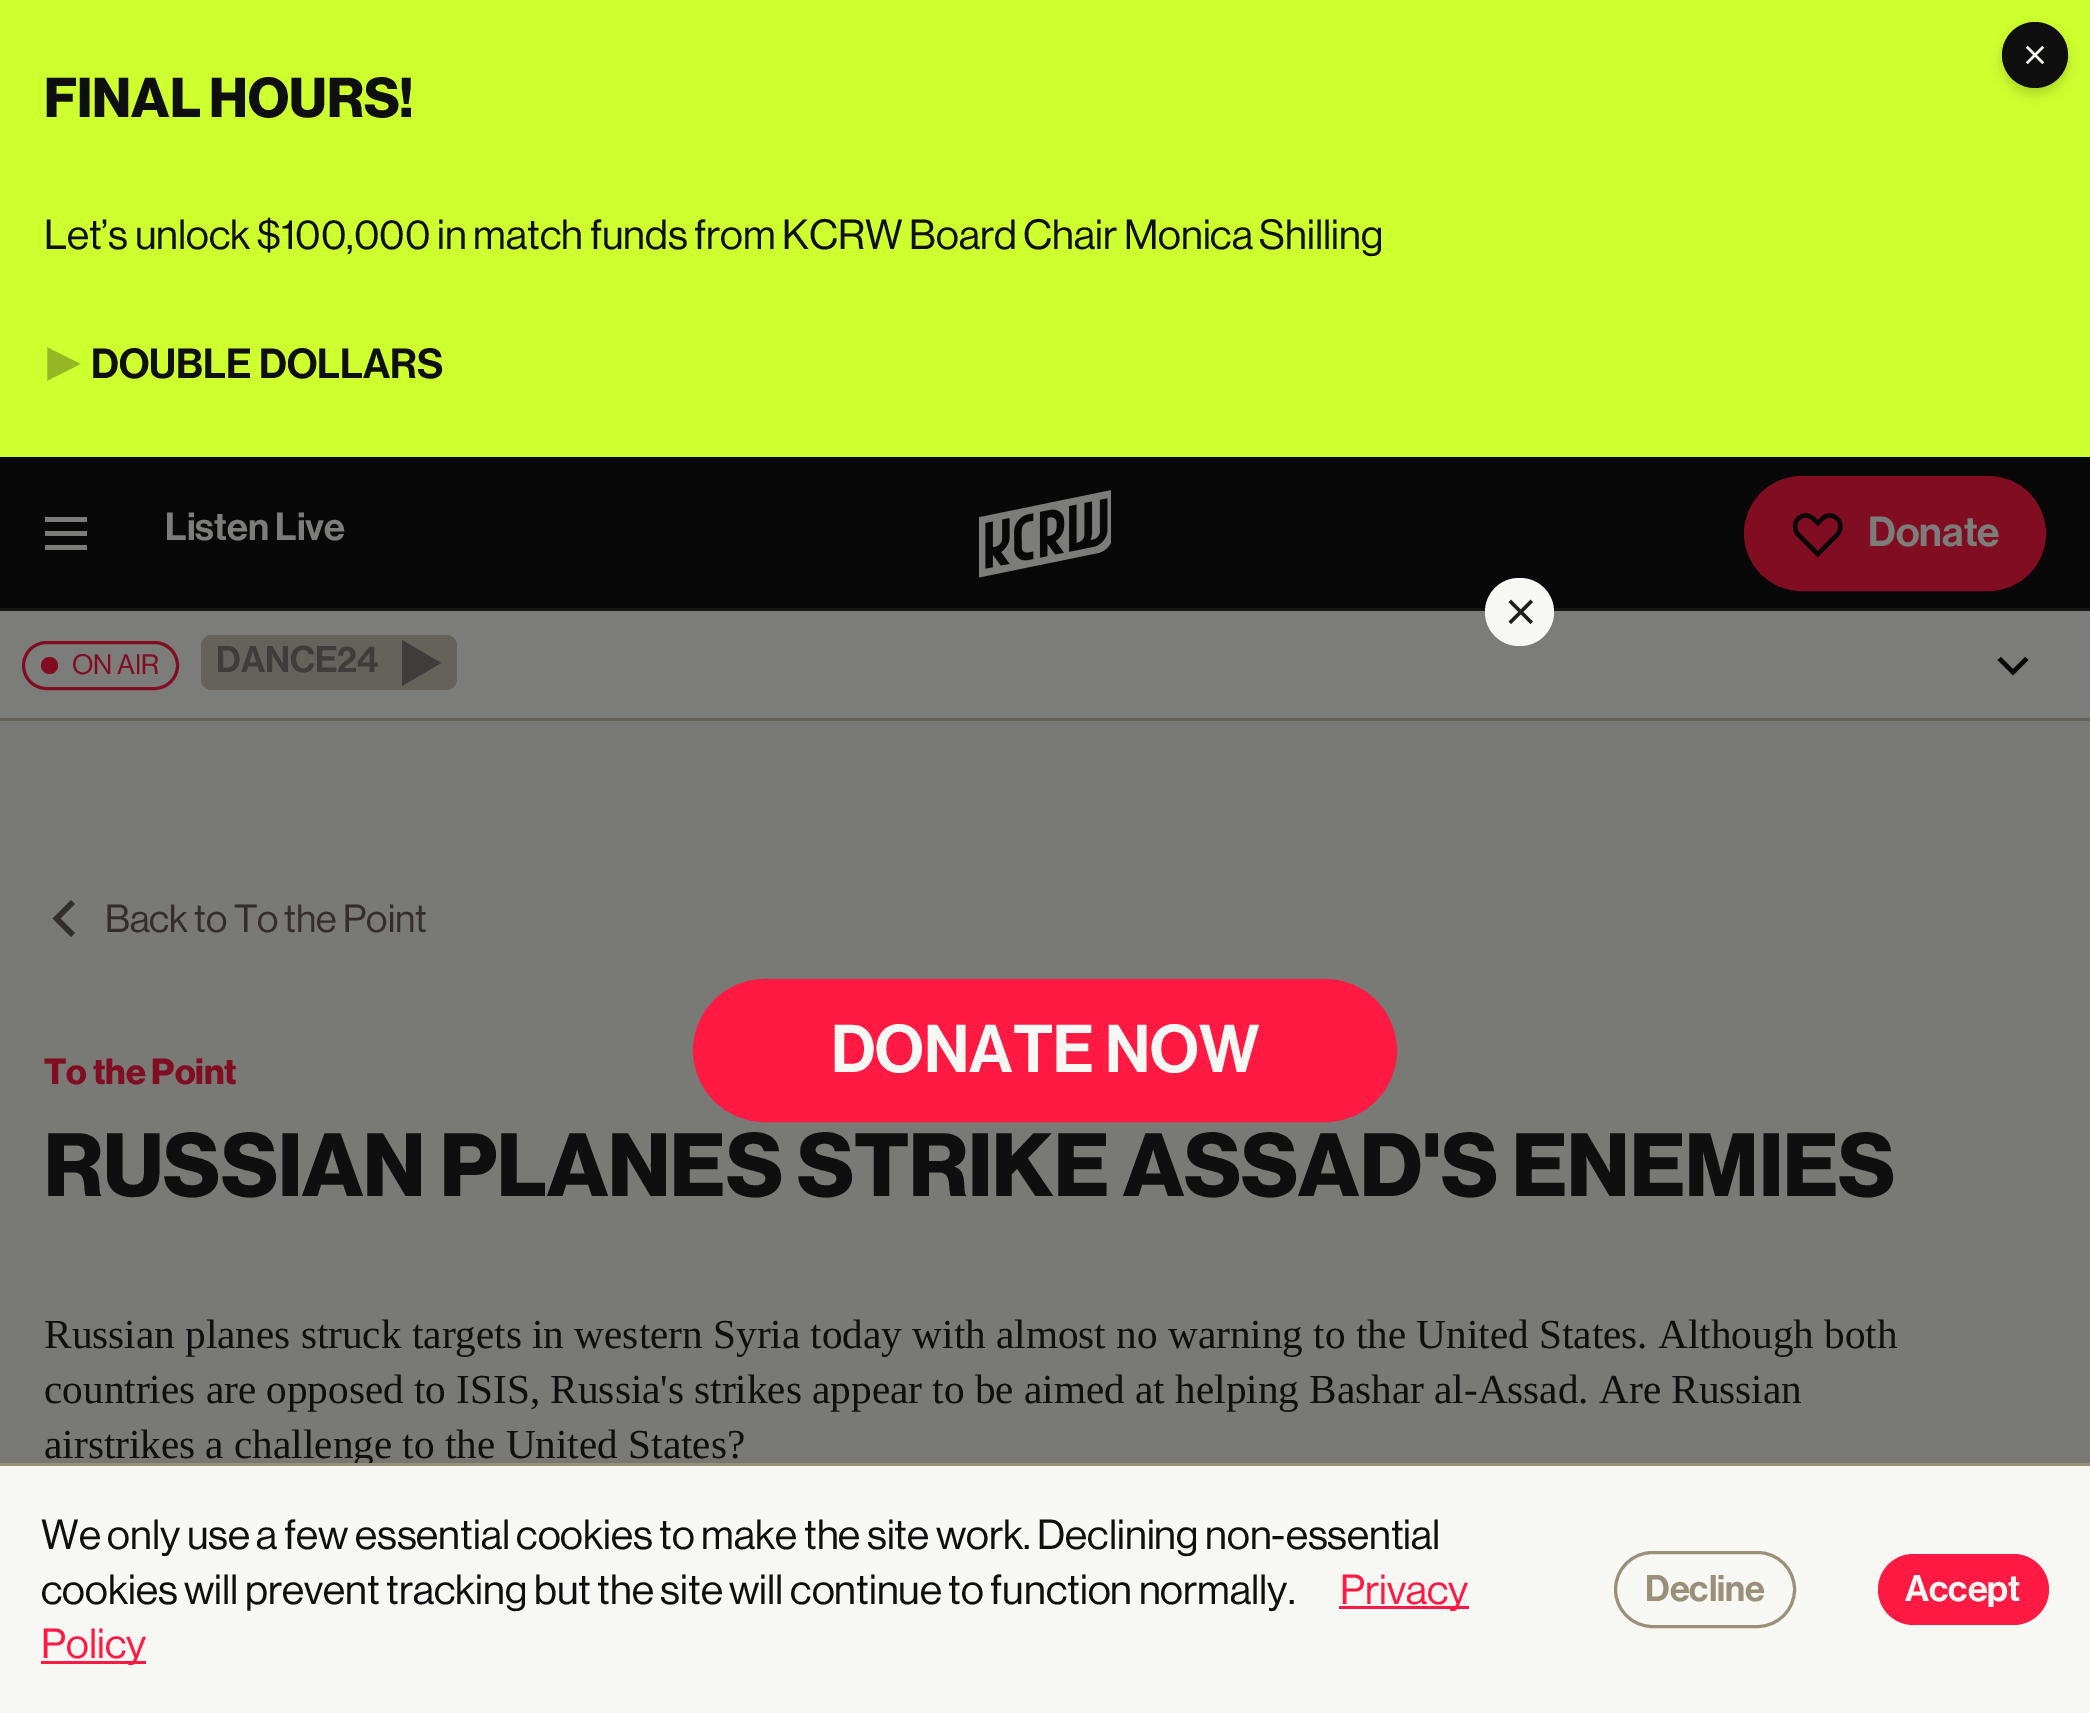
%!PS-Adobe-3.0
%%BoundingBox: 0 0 2090 1713
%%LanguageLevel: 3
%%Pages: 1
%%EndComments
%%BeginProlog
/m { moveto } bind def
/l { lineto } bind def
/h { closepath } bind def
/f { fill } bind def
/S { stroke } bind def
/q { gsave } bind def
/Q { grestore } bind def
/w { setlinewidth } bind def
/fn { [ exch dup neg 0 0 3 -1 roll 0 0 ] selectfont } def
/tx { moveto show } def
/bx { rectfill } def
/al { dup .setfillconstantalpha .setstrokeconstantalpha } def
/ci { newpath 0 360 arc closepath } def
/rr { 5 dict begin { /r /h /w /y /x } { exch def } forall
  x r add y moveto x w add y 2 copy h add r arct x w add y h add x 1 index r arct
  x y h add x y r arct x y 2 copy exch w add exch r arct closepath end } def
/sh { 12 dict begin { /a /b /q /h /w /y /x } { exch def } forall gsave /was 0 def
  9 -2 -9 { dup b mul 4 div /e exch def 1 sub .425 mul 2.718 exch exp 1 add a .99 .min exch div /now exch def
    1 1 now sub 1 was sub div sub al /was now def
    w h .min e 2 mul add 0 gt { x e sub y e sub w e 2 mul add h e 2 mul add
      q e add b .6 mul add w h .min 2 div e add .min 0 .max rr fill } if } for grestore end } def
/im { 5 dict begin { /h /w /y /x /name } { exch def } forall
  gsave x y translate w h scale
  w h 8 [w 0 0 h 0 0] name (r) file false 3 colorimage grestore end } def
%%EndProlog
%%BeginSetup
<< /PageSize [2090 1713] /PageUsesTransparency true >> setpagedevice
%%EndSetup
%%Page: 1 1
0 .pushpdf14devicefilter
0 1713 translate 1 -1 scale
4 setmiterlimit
0.475 0.475 0.459 setrgbcolor
0 0 2090 1713 bx
0.808 1 0.18 setrgbcolor
0 0 2090 457 bx
/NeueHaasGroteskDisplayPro-Bold 55 fn
0.063 0.059 0.059 setrgbcolor
(FINAL HOURS!) 44 117 tx
0.039 setgray
2002 28 66 66 33 5.5 0.16 sh
0.059 setgray
2035 55 33 ci f
(image0.raw) 2025 45 20 20 im
/NeueHaasGroteskDisplayPro-Medium 41.25 fn
0.063 0.059 0.059 setrgbcolor
(Let’s unlock $100,000 in match funds from KCRW Board Chair Monica Shilling) 44 249 tx
/DejaVuSans-Bold 62 fn
0.584 0.718 0.145 setrgbcolor
(▸) 47 381 tx
/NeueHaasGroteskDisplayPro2-Medium 41.25 fn
0.063 0.059 0.059 setrgbcolor
(DOUBLE DOLLARS) 91 378 tx
0.031 setgray
0 457 2090 151 bx
0.086 0.086 0.082 setrgbcolor
0 608 2090 3 bx
0.486 0.486 0.478 setrgbcolor
45 517 m 87 517 l 87 522 l 45 522 l h 45 531 m 87 531 l 87 536 l 45 536 l h 87 545 m 45 545 l 45 550 l 87 550 l h eofill
/NeueHaasGroteskDisplayPro2-Medium 38.5 fn
(Listen Live) 165 540 tx
(image1.raw) 979 490 132 88 im
0.502 0.051 0.133 setrgbcolor
1745.5 477.5 299 112 56 rr q f Q
3 w
S
(image2.raw) 1792 513 51 45 im
/NeueHaasGroteskDisplayPro2-Medium 41.25 fn
0.486 0.486 0.478 setrgbcolor
(Donate) 1868 546 tx
0 611 2090 107 bx
0.392 0.384 0.341 setrgbcolor
0 718 2090 3 bx
0.502 0.051 0.133 setrgbcolor
23.5 642.5 154 46 23 rr S
49.5 665.5 8.5 ci f
/NeueHaasGroteskDisplayPro-Medium 27.5 fn
(ON AIR) 72 674 tx
0.471 setgray
201 635 256 55 11 rr f
0.7 al
0.357 0.349 0.302 setrgbcolor
201 635 256 55 11 rr f
/NeueHaasGroteskDisplayPro2-Medium 36.5 fn
1 al
0.247 0.239 0.231 setrgbcolor
(DANCE24) 216 672 tx
402 640 m 402 686 l 441 663 l h f
0.031 setgray
1997.5 660 m 2001 657 l 2013 669 l 2025 657 l 2028.5 660 l 2013 675.5 l h eofill
0.2 0.18 0.165 setrgbcolor
71 900 m 75 904 l 60.5 918.5 l 75 933 l 71 937 l 52.5 918.5 l h eofill
/NeueHaasGroteskDisplayPro-Medium 38.5 fn
(Back to To the Point) 105 932 tx
/NeueHaasGroteskDisplayPro-Bold 35.75 fn
0.502 0.051 0.133 setrgbcolor
(To the Point) 44 1084 tx
/NeueHaasGroteskDisplayPro-Bold 88 fn
0.063 0.059 0.059 setrgbcolor
(RUSSIAN PLANES STRIKE ASSAD'S ENEMIES) 44 1196 tx
/LiberationSerif-Regular 41.25 fn
(Russian planes struck targets in western Syria today with almost no warning to the United States. Although both) 44 1348 tx
(countries are opposed to ISIS, Russia's strikes appear to be aimed at helping Bashar al-Assad. Are Russian) 44 1403 tx
(airstrikes a challenge to the United States?) 44 1458 tx
0.969 0.969 0.953 setrgbcolor
1485 578 69 68 34 rr f
(image3.raw) 1508 599 25 26 im
1 0.102 0.267 setrgbcolor
696 982 698 137 68.5 rr q f Q
6 w
S
/NeueHaasGroteskDisplayPro2-Medium 66 fn
0.969 0.969 0.953 setrgbcolor
(DONATE NOW) 831 1072 tx
0.404 0.02 0.067 setrgbcolor
0 1469 2090 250 0 5.5 0.25 sh
0.969 0.969 0.953 setrgbcolor
0 1466 2090 247 bx
0.604 0.565 0.475 setrgbcolor
0 1463 2090 3 bx
/NeueHaasGroteskDisplayPro-Medium 41.25 fn
0.063 0.059 0.059 setrgbcolor
(We only use a few essential cookies to make the site work. Declining non-essential) 41 1549 tx
(cookies will prevent tracking but the site will continue to function normally.) 41 1604 tx
1 0.102 0.267 setrgbcolor
1339 1606 130 3 bx
(Privacy) 1340 1604 tx
41 1661 105 3 bx
(Policy) 41 1658 tx
0.604 0.565 0.475 setrgbcolor
3 w
1615.5 1552.5 179 74 37 rr S
/NeueHaasGroteskDisplayPro2-Medium 36.5 fn
(Decline) 1645 1601 tx
1 0.102 0.267 setrgbcolor
1878 1554 171 71 35.5 rr f
0.969 0.969 0.953 setrgbcolor
(Accept) 1905 1601 tx
.poppdf14devicefilter showpage
%%EOF
